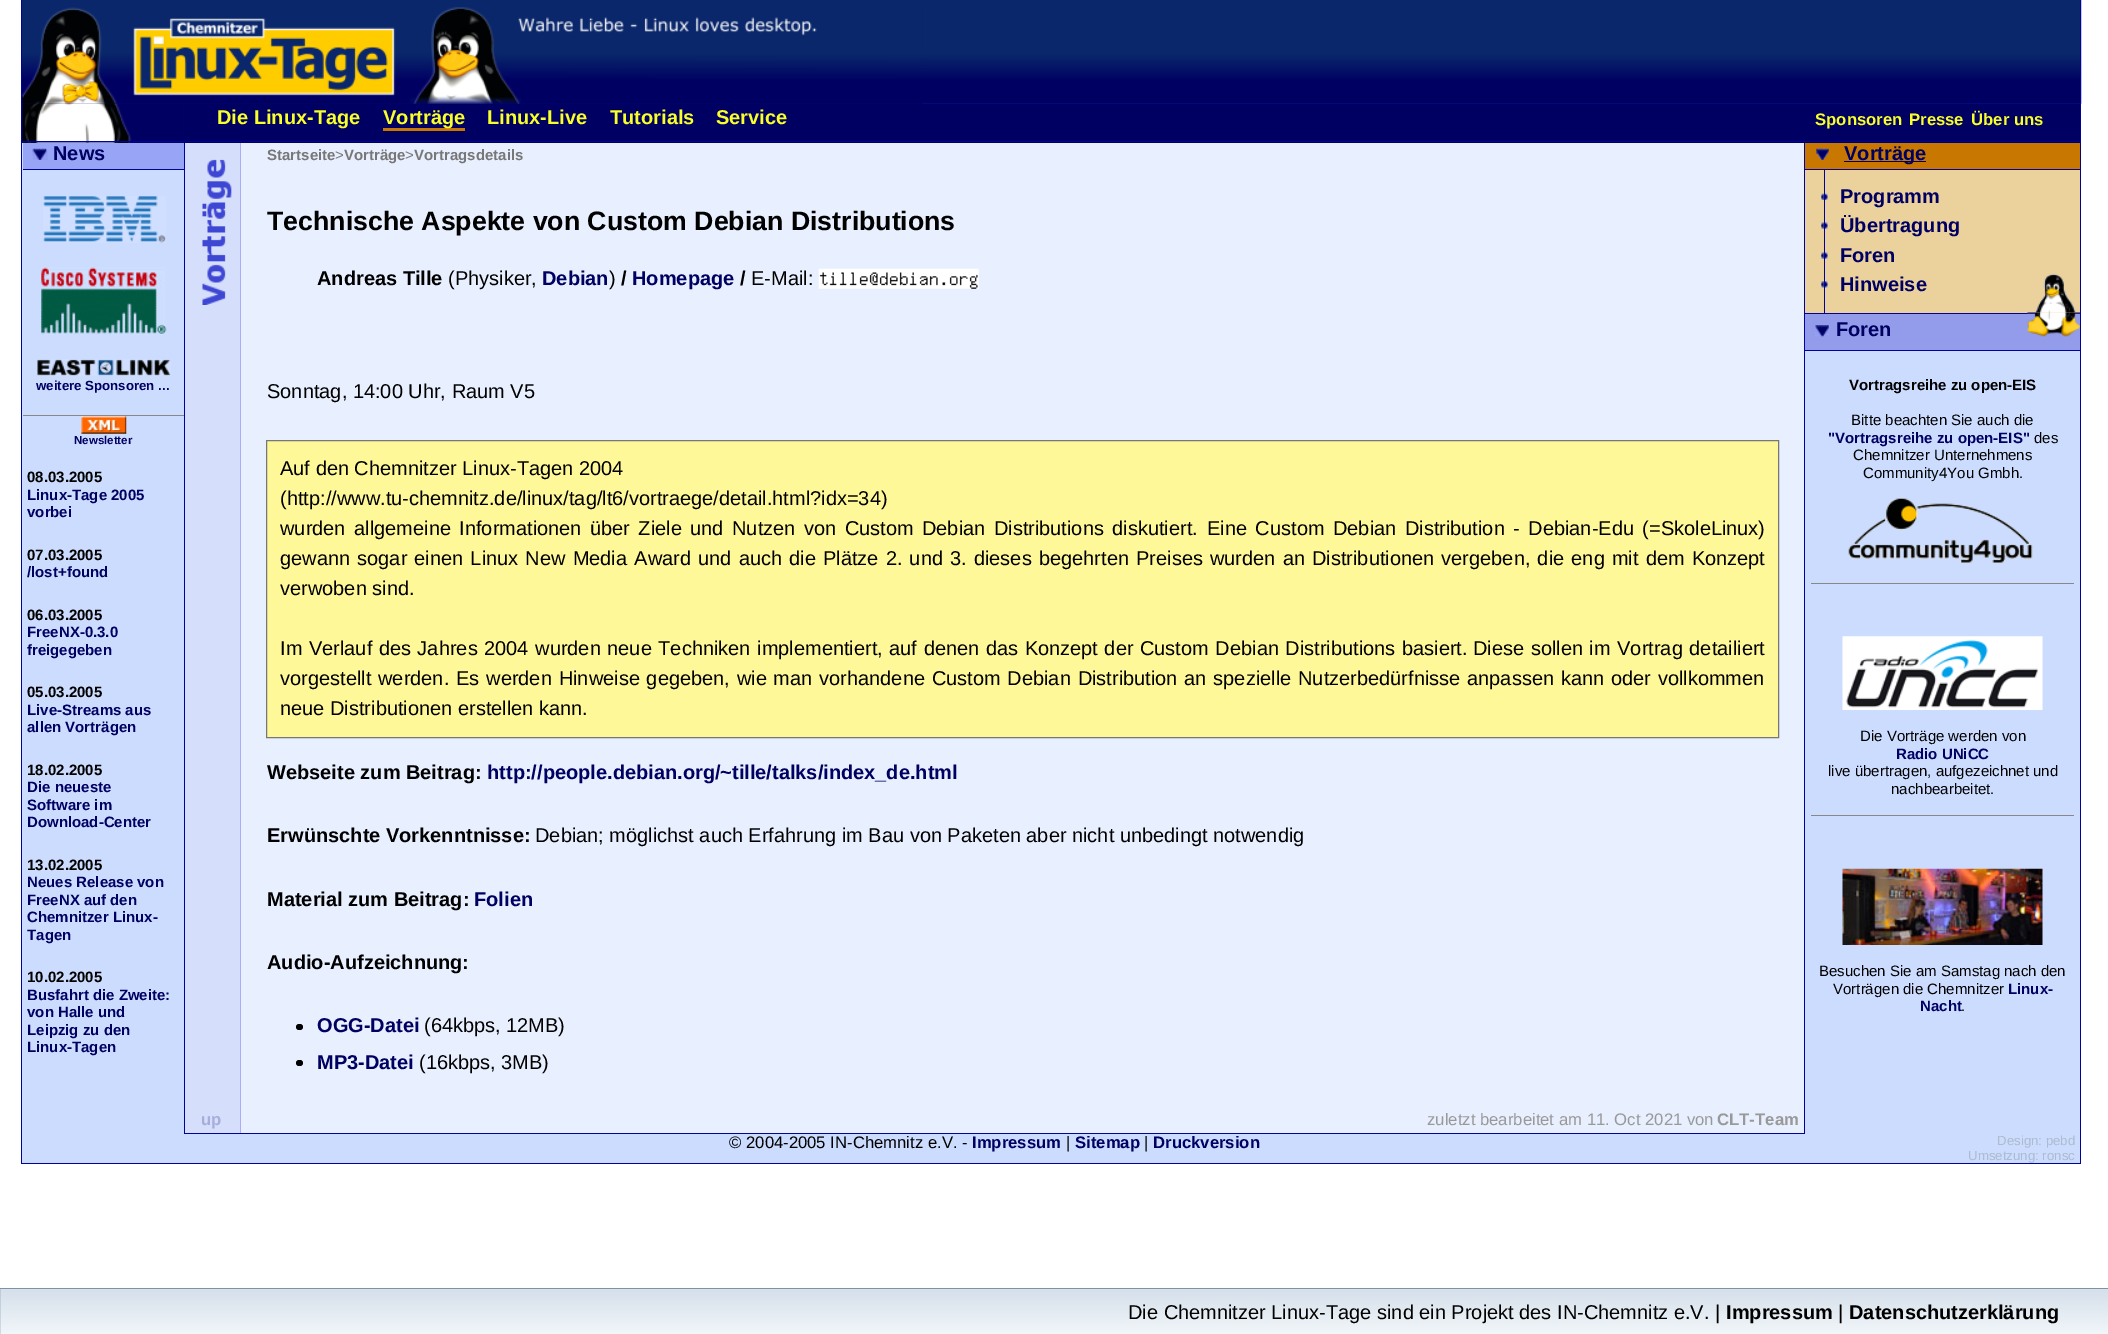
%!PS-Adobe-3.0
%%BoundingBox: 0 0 2108 1334
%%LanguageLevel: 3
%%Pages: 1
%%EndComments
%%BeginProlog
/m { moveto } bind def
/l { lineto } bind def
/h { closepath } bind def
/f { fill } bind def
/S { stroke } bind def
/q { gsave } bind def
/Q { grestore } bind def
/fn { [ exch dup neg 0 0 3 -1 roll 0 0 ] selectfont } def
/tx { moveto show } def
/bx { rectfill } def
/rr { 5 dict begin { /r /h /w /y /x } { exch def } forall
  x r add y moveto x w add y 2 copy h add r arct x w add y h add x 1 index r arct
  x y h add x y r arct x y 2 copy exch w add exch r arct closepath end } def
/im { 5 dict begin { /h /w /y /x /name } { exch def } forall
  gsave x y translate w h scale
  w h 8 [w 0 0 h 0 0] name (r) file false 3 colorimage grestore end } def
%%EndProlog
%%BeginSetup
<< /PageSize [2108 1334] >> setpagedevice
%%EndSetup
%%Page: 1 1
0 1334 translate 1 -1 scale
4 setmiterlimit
1 setgray
0 0 2108 1334 bx
(image0.raw) 22 0 2060 104 im
0 0.008 0.6 setrgbcolor
2080 0 1 1164 bx
21 0 1 104 bx
0 0.031 0.384 setrgbcolor
22 104 162 39 bx
(image2.raw) 22 103 162 40 im
(image1.raw) 22 7 901 97 im
0 0.008 0.6 setrgbcolor
21 141 163 1 bx
21 104 1 1029 bx
0 0 0.388 setrgbcolor
184 104 1896 39 bx
0 0.008 0.6 setrgbcolor
184 141 1897 1 bx
/LiberationSans-Bold 20 fn
0.976 1 0.161 setrgbcolor
(Die Linux-Tage) 217 124 tx
0.784 0.471 0 setrgbcolor
383 128 82 3 bx
0.976 1 0.161 setrgbcolor
(Vorträge) 383 124 tx
(Linux-Live) 487 124 tx
(Tutorials) 610 124 tx
(Service) 716 124 tx
/LiberationSans-Bold 16.7 fn
(Sponsoren) 1815 125 tx
(Presse) 1909 125 tx
(Über uns) 1971 125 tx
0.8 0.863 0.996 setrgbcolor
22 143 162 1020 bx
0.596 0.647 0.965 setrgbcolor
23 143 161 26 bx
(image3.raw) 32 148 16 12 im
/LiberationSans-Bold 20 fn
0 0 0.388 setrgbcolor
(News) 53 160 tx
0 0.008 0.6 setrgbcolor
23 169 161 1 bx
0.533 setgray
23 415 161 1 bx
(image4.raw) 43 196 123 47 im
(image5.raw) 41 267 126 68 im
(image6.raw) 37 359 134 17 im
/LiberationSans-Bold 13.25 fn
0 0 0.388 setrgbcolor
(weitere Sponsoren ...) 36 390 tx
(image7.raw) 81 416 46 18 im
/LiberationSans-Bold 11.5 fn
(Newsletter) 74 444 tx
/LiberationSans-Bold 15 fn
0 setgray
(08.03.2005) 27 482 tx
0 0 0.388 setrgbcolor
(Linux-Tage 2005) 27 500 tx
(vorbei) 27 517 tx
0 setgray
(07.03.2005) 27 560 tx
0 0 0.388 setrgbcolor
(/lost+found) 27 577 tx
0 setgray
(06.03.2005) 27 620 tx
0 0 0.388 setrgbcolor
(FreeNX-0.3.0) 27 637 tx
(freigegeben) 27 655 tx
0 setgray
(05.03.2005) 27 697 tx
0 0 0.388 setrgbcolor
(Live-Streams aus) 27 715 tx
(allen Vorträgen) 27 732 tx
0 setgray
(18.02.2005) 27 775 tx
0 0 0.388 setrgbcolor
(Die neueste) 27 792 tx
(Software im) 27 810 tx
(Download-Center) 27 827 tx
0 setgray
(13.02.2005) 27 870 tx
0 0 0.388 setrgbcolor
(Neues Release von) 27 887 tx
(FreeNX auf den) 27 905 tx
(Chemnitzer Linux-) 27 922 tx
(Tagen) 27 940 tx
0 setgray
(10.02.2005) 27 982 tx
0 0 0.388 setrgbcolor
(Busfahrt die Zweite:) 27 1000 tx
(von Halle und) 27 1017 tx
(Leipzig zu den) 27 1035 tx
(Linux-Tagen) 27 1052 tx
0.835 0.871 0.98 setrgbcolor
185 143 55 990 bx
0.671 0.678 0.969 setrgbcolor
240 143 1 990 bx
0 0.008 0.6 setrgbcolor
184 143 1 990 bx
(image8.raw) 202 159 30 146 im
0.91 0.937 0.996 setrgbcolor
241 143 1563 990 bx
0 0.008 0.6 setrgbcolor
1804 143 1 990 bx
0.467 setgray
(Startseite) 267 160 tx
/LiberationSans-Regular 15 fn
(>) 335 160 tx
/LiberationSans-Bold 15 fn
(Vorträge) 344 160 tx
/LiberationSans-Regular 15 fn
(>) 405 160 tx
/LiberationSans-Bold 15 fn
(Vortragsdetails) 414 160 tx
/LiberationSans-Bold 26.7 fn
0 setgray
(Technische Aspekte von Custom Debian Distributions) 267 230 tx
/LiberationSans-Bold 20 fn
(Andreas Tille) 317 285 tx
/LiberationSans-Regular 20 fn
(\(Physiker,) 448 285 tx
/LiberationSans-Bold 20 fn
0 0 0.388 setrgbcolor
(Debian) 542 285 tx
/LiberationSans-Regular 20 fn
0 setgray
(\)) 609 285 tx
/LiberationSans-Bold 20 fn
(/) 621 285 tx
0 0 0.388 setrgbcolor
(Homepage) 632 285 tx
0 setgray
(/) 740 285 tx
/LiberationSans-Regular 20 fn
(E-Mail:) 751 285 tx
(image9.raw) 818 268 161 21 im
(Sonntag, 14:00 Uhr, Raum V5) 267 398 tx
1 0.973 0.596 setrgbcolor
266.5 440.5 m 1778.5 440.5 l 1778.5 737.5 l 266.5 737.5 l h q f Q
0.467 setgray
S
0 setgray
(Auf den Chemnitzer Linux-Tagen 2004) 280 475 tx
(\(http://www.tu-chemnitz.de/linux/tag/lt6/vortraege/detail.html?idx=34\)) 280 505 tx
280 535 m 2.9 0 32 (wurden allgemeine Informationen über Ziele und Nutzen von Custom Debian Distributions diskutiert.) widthshow
1207 535 m 2.9 0 32 (Eine Custom Debian Distribution - Debian-Edu \(=SkoleLinux\)) widthshow
280 565 m 1.6 0 32 (gewann sogar einen Linux New Media Award und auch die Plätze 2. und 3. dieses begehrten Preises wurden an Distributionen vergeben, die eng mit dem Konzept) widthshow
(verwoben sind.) 280 595 tx
280 655 m 1 0 32 (Im Verlauf des Jahres 2004 wurden neue Techniken implementiert, auf denen das Konzept der Custom Debian Distributions basiert.) widthshow
1473 655 m 1 0 32 (Diese sollen im Vortrag detailiert) widthshow
280 685 m 1.25 0 32 (vorgestellt werden.) widthshow
456 685 m 1.25 0 32 (Es werden Hinweise gegeben, wie man vorhandene Custom Debian Distribution an spezielle Nutzerbedürfnisse anpassen kann oder vollkommen) widthshow
(neue Distributionen erstellen kann.) 280 715 tx
/LiberationSans-Bold 20 fn
(Webseite zum Beitrag:) 267 779 tx
0 0 0.388 setrgbcolor
(http://people.debian.org/~tille/talks/index_de.html) 487 779 tx
0 setgray
(Erwünschte Vorkenntnisse:) 267 842 tx
/LiberationSans-Regular 20 fn
(Debian; möglichst auch Erfahrung im Bau von Paketen aber nicht unbedingt notwendig) 535 842 tx
/LiberationSans-Bold 20 fn
(Material zum Beitrag:) 267 906 tx
0 0 0.388 setrgbcolor
(Folien) 474 906 tx
0 setgray
(Audio-Aufzeichnung:) 267 969 tx
296 1024 7 6 3 rr f
0 0 0.388 setrgbcolor
(OGG-Datei) 317 1032 tx
/LiberationSans-Regular 20 fn
0 setgray
(\(64kbps, 12MB\)) 424 1032 tx
296 1060 7 6 3 rr f
/LiberationSans-Bold 20 fn
0 0 0.388 setrgbcolor
(MP3-Datei) 317 1069 tx
/LiberationSans-Regular 20 fn
0 setgray
(\(16kbps, 3MB\)) 419 1069 tx
0.8 0.863 0.996 setrgbcolor
1805 351 275 812 bx
0.784 0.471 0 setrgbcolor
1805 143 275 26 bx
(image10.raw) 1816 148 13 12 im
0 0 0.388 setrgbcolor
1844 161 82 1 bx
/LiberationSans-Bold 20 fn
(Vorträge) 1844 160 tx
0.922 0.82 0.608 setrgbcolor
1805 170 275 143 bx
0 0.008 0.6 setrgbcolor
1805 169 275 1 bx
1824 169 1 144 bx
(image11.raw) 1821 193 3 7 im
(image12.raw) 1825 193 3 7 im
0 0 0.388 setrgbcolor
(Programm) 1840 203 tx
(image13.raw) 1821 222 3 7 im
(image14.raw) 1825 222 3 7 im
(Übertragung) 1840 232 tx
(image13.raw) 1821 252 3 7 im
(image14.raw) 1825 252 3 7 im
(Foren) 1840 262 tx
(image15.raw) 1821 281 3 7 im
(image16.raw) 1825 281 3 7 im
(Hinweise) 1840 291 tx
(image17.raw) 2035 273 41 40 im
0.573 0.612 0.918 setrgbcolor
1805 314 223 36 bx
0 0.008 0.6 setrgbcolor
1805 313 223 1 bx
1805 350 275 1 bx
(image18.raw) 1815 325 15 12 im
0 0 0.388 setrgbcolor
(Foren) 1836 336 tx
0.573 0.612 0.918 setrgbcolor
2028 336 52 14 bx
(image19.raw) 2027 312 53 25 im
/LiberationSans-Bold 15 fn
0 setgray
(Vortragsreihe zu open-EIS) 1849 390 tx
/LiberationSans-Regular 15 fn
(Bitte beachten Sie auch die) 1851 425 tx
/LiberationSans-Bold 15 fn
0 0 0.388 setrgbcolor
("Vortragsreihe zu open-EIS") 1828 443 tx
/LiberationSans-Regular 15 fn
0 setgray
(des) 2034 443 tx
(Chemnitzer Unternehmens) 1853 460 tx
(Community4You Gmbh.) 1863 478 tx
(image20.raw) 1848 497 185 66 im
0.533 setgray
1811 583 263 1 bx
(image21.raw) 1842 636 201 74 im
0 setgray
(Die Vorträge werden von) 1860 741 tx
/LiberationSans-Bold 15 fn
0 0 0.388 setrgbcolor
(Radio UNiCC) 1896 759 tx
/LiberationSans-Regular 15 fn
0 setgray
(live übertragen, aufgezeichnet und) 1828 776 tx
(nachbearbeitet.) 1891 794 tx
0.533 setgray
1811 815 263 1 bx
(image22.raw) 1842 868 201 77 im
0 setgray
(Besuchen Sie am Samstag nach den) 1819 976 tx
(Vorträgen die Chemnitzer) 1833 994 tx
/LiberationSans-Bold 15 fn
0 0 0.388 setrgbcolor
(Linux-) 2008 994 tx
(Nacht) 1920 1011 tx
/LiberationSans-Regular 15 fn
0 setgray
(.) 1961 1011 tx
/LiberationSans-Bold 16.7 fn
0.647 0.682 0.855 setrgbcolor
(up) 201 1125 tx
/LiberationSans-Regular 16.7 fn
0.6 setgray
(zuletzt bearbeitet am 11. Oct 2021 von) 1427 1125 tx
/LiberationSans-Bold 16.7 fn
(CLT-Team) 1717 1125 tx
0 0.008 0.6 setrgbcolor
21 1163 2060 1 bx
21 1133 1 31 bx
0.8 0.863 0.996 setrgbcolor
184 1134 1621 29 bx
0 0.008 0.6 setrgbcolor
184 1133 1621 1 bx
/LiberationSans-Regular 16.7 fn
0 setgray
(© 2004-2005 IN-Chemnitz e.V. -) 729 1148 tx
/LiberationSans-Bold 16.7 fn
0 0 0.388 setrgbcolor
(Impressum) 972 1148 tx
/LiberationSans-Regular 16.7 fn
0 setgray
(|) 1066 1148 tx
/LiberationSans-Bold 16.7 fn
0 0 0.388 setrgbcolor
(Sitemap) 1075 1148 tx
/LiberationSans-Regular 16.7 fn
0 setgray
(|) 1144 1148 tx
/LiberationSans-Bold 16.7 fn
0 0 0.388 setrgbcolor
(Druckversion) 1153 1148 tx
/LiberationSans-Regular 13.25 fn
0.675 0.737 0.808 setrgbcolor
(Design: pebd) 1997 1145 tx
(Umsetzung: ronsc) 1968 1160 tx
q 0 1290 m 2108 1290 l 2108 1334 l 0 1334 l h clip newpath
<< /ShadingType 2 /ColorSpace /DeviceRGB /Coords [1054 1290 1054 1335] /Extend [true true] /Function << /FunctionType 2 /Domain [0 1] /C0 [0.839 0.878 0.922] /C1 [0.949 0.965 0.976] /N 1 >> >> shfill Q
0.482 0.573 0.663 setrgbcolor
-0.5 1288.5 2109 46 rectstroke
/LiberationSans-Regular 20 fn
0 setgray
(Die Chemnitzer Linux-Tage sind ein Projekt des IN-Chemnitz e.V. |) 1128 1319 tx
/LiberationSans-Bold 20 fn
(Impressum) 1726 1319 tx
/LiberationSans-Regular 20 fn
(|) 1838 1319 tx
/LiberationSans-Bold 20 fn
(Datenschutzerklärung) 1849 1319 tx
showpage
%%EOF
